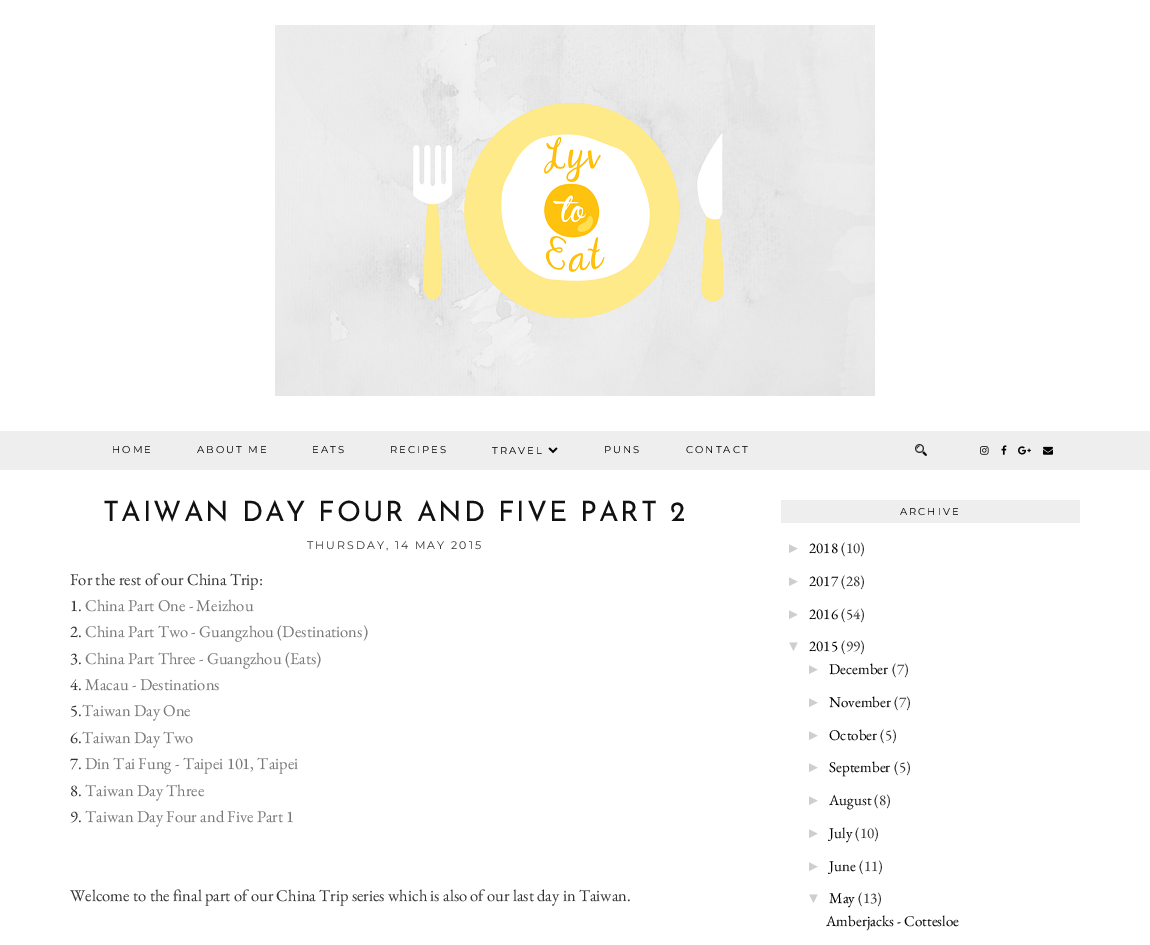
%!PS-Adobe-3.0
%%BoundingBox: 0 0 1150 945
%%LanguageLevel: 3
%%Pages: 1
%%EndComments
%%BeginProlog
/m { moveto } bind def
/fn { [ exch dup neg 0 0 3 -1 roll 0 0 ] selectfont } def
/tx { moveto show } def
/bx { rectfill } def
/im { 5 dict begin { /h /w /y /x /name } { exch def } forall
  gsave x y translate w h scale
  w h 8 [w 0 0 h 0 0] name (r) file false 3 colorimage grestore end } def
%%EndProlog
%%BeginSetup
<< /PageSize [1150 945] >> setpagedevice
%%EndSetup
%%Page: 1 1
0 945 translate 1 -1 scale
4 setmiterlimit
1 setgray
0 0 1150 945 bx
(image0.raw) 275 25 600 371 im
0.933 setgray
0 431 1150 39 bx
/Montserrat-Thin 10 fn
0 setgray
112 453 m 2 0 (HOME) ashow
197 453 m 2 0 (ABOUT ME) ashow
312 453 m 2 0 (EATS) ashow
390 453 m 2 0 (RECIPES) ashow
492 454 m 2 0 (TRAVEL) ashow
(image1.raw) 548 447 10 7 im
604 453 m 2 0 (PUNS) ashow
686 453 m 2 0 (CONTACT) ashow
(image2.raw) 915 444 12 12 im
(image3.raw) 980 446 9 9 im
(image4.raw) 1001 445 6 10 im
(image5.raw) 1018 446 13 9 im
(image6.raw) 1043 446 10 9 im
/JosefinSans-Regular 28 fn
0.067 setgray
103 521 m 2 0 (TAIWAN DAY FOUR AND FIVE PART 2) ashow
/Montserrat-Thin 11 fn
0.2 setgray
307 549 m 2 0 (THURSDAY, 14 MAY 2015) ashow
/EBGaramond-Regular 16.5 fn
(For the rest of our China Trip:) 70 585 tx
(1.) 70 611 tx
0.467 setgray
(China Part One - Meizhou) 85 611 tx
0.2 setgray
(2.) 70 637 tx
0.467 setgray
(China Part Two - Guangzhou \(Destinations\)) 85 637 tx
0.2 setgray
(3.) 70 664 tx
0.467 setgray
(China Part Three - Guangzhou \(Eats\)) 85 664 tx
0.2 setgray
(4.) 70 690 tx
0.467 setgray
(Macau - Destinations) 85 690 tx
0.2 setgray
(5.) 70 716 tx
0.467 setgray
(Taiwan Day One) 82 716 tx
0.2 setgray
(6.) 70 743 tx
0.467 setgray
(Taiwan Day Two) 82 743 tx
0.2 setgray
(7.) 70 769 tx
0.467 setgray
(Din Tai Fung - Taipei 101, Taipei) 85 769 tx
0.2 setgray
(8.) 70 796 tx
0.467 setgray
(Taiwan Day Three) 85 796 tx
0.2 setgray
(9.) 70 822 tx
0.467 setgray
(Taiwan Day Four and Five Part 1) 85 822 tx
0.2 setgray
(Welcome to the final part of our China Trip series which is also of our last day in Taiwan.) 70 901 tx
0.933 setgray
781 500 299 23 bx
/Montserrat-Thin 10 fn
0 setgray
900 515 m 2 0 (ARCHIVE) ashow
/LiberationSans-Regular 15 fn
0.808 setgray
(►) 786 553 tx
/EBGaramond-Regular 15 fn
0 setgray
(2018) 809 553 tx
0.2 setgray
(\(10\)) 841 553 tx
/LiberationSans-Regular 15 fn
0.808 setgray
(►) 786 586 tx
/EBGaramond-Regular 15 fn
0 setgray
(2017) 809 586 tx
0.2 setgray
(\(28\)) 841 586 tx
/LiberationSans-Regular 15 fn
0.808 setgray
(►) 786 619 tx
/EBGaramond-Regular 15 fn
0 setgray
(2016) 809 619 tx
0.2 setgray
(\(54\)) 841 619 tx
/LiberationSans-Regular 15 fn
0.808 setgray
(▼) 786 651 tx
/EBGaramond-Regular 15 fn
0 setgray
(2015) 809 651 tx
0.2 setgray
(\(99\)) 841 651 tx
/LiberationSans-Regular 15 fn
0.808 setgray
(►) 806 674 tx
/EBGaramond-Regular 15 fn
0 setgray
(December) 829 674 tx
0.2 setgray
(\(7\)) 892 674 tx
/LiberationSans-Regular 15 fn
0.808 setgray
(►) 806 707 tx
/EBGaramond-Regular 15 fn
0 setgray
(November) 829 707 tx
0.2 setgray
(\(7\)) 894 707 tx
/LiberationSans-Regular 15 fn
0.808 setgray
(►) 806 740 tx
/EBGaramond-Regular 15 fn
0 setgray
(October) 829 740 tx
0.2 setgray
(\(5\)) 880 740 tx
/LiberationSans-Regular 15 fn
0.808 setgray
(►) 806 772 tx
/EBGaramond-Regular 15 fn
0 setgray
(September) 829 772 tx
0.2 setgray
(\(5\)) 894 772 tx
/LiberationSans-Regular 15 fn
0.808 setgray
(►) 806 805 tx
/EBGaramond-Regular 15 fn
0 setgray
(August) 829 805 tx
0.2 setgray
(\(8\)) 874 805 tx
/LiberationSans-Regular 15 fn
0.808 setgray
(►) 806 838 tx
/EBGaramond-Regular 15 fn
0 setgray
(July) 829 838 tx
0.2 setgray
(\(10\)) 855 838 tx
/LiberationSans-Regular 15 fn
0.808 setgray
(►) 806 871 tx
/EBGaramond-Regular 15 fn
0 setgray
(June) 829 871 tx
0.2 setgray
(\(11\)) 859 871 tx
/LiberationSans-Regular 15 fn
0.808 setgray
(▼) 806 903 tx
/EBGaramond-Regular 15 fn
0 setgray
(May) 829 903 tx
0.2 setgray
(\(13\)) 858 903 tx
0 setgray
(Amberjacks - Cottesloe) 826 926 tx
showpage
%%EOF
